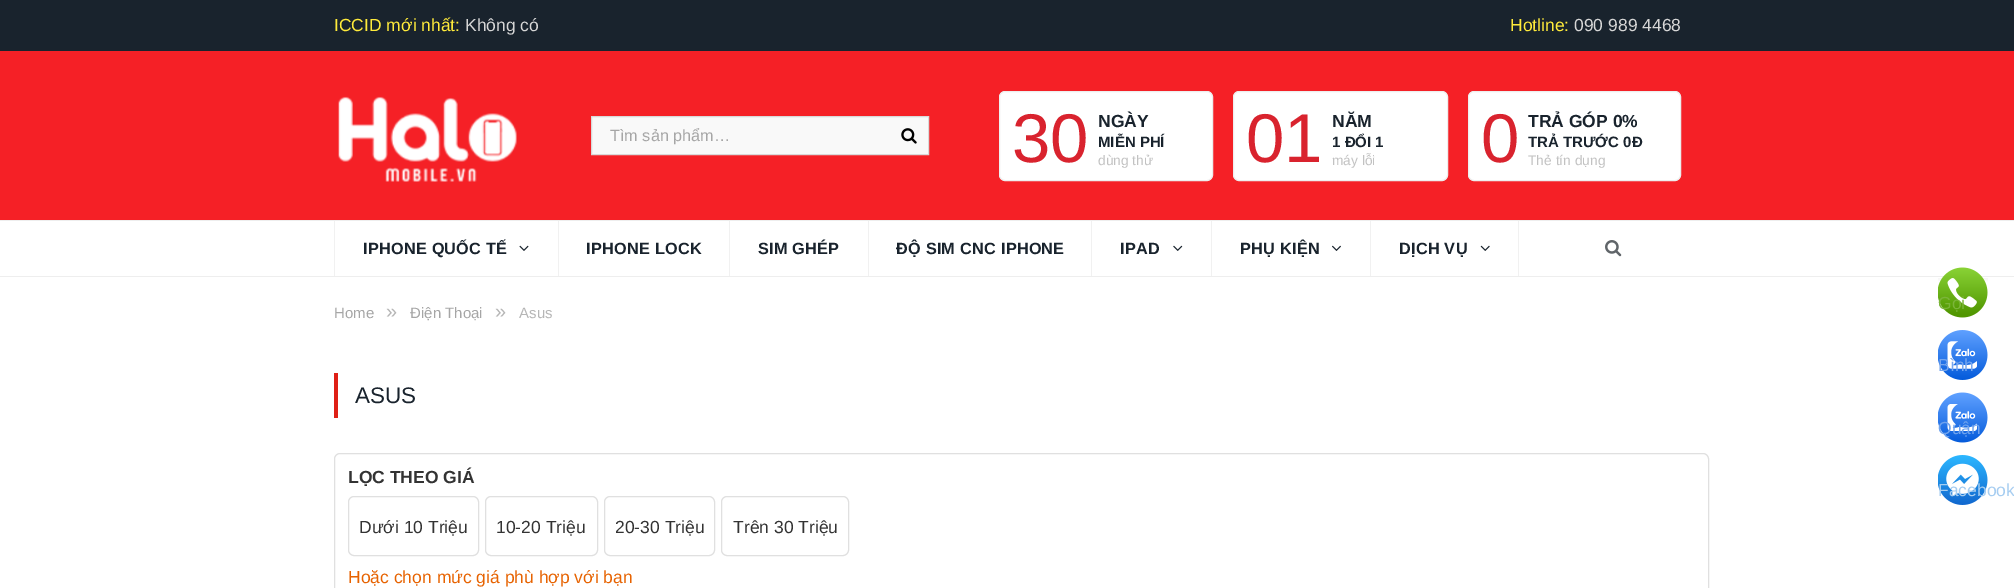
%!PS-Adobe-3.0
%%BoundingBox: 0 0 2014 588
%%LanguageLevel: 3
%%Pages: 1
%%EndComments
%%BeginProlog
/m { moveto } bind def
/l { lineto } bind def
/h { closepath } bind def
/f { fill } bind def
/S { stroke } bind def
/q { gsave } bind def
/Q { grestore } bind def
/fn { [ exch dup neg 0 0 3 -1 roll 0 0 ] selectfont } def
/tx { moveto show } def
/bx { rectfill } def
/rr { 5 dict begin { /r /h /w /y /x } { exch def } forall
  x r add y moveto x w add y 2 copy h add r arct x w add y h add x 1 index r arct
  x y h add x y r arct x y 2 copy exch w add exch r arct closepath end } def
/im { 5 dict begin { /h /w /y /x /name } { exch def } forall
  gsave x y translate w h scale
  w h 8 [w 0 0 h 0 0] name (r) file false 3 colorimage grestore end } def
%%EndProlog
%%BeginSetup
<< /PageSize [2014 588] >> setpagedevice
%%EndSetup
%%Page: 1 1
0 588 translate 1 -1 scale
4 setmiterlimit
1 setgray
0 0 2014 588 bx
0.098 0.137 0.176 setrgbcolor
0 0 2014 51 bx
/LiberationSans-Regular 17.5 fn
1 0.922 0.231 setrgbcolor
(ICCID mới nhất:) 334 31 tx
0.839 setgray
(Không có) 465 31 tx
1 0.922 0.231 setrgbcolor
(Hotline:) 1510 31 tx
0.839 setgray
(090 989 4468) 1574 31 tx
0.961 0.125 0.149 setrgbcolor
0 51 2014 169 bx
(image0.raw) 338 96 179 86 im
0.976 setgray
591.5 116.5 m 928.5 116.5 l 928.5 154.5 l 591.5 154.5 l h q f Q
0.851 setgray
S
/LiberationSans-Regular 16.25 fn
0.651 setgray
(Tìm sản phẩm…) 610 141 tx
(image1.raw) 901 128 16 16 im
1 setgray
999.5 91.5 213 89 5.5 rr q f Q
0.933 setgray
S
/LiberationSans-Regular 69 fn
0.851 0.137 0.18 setrgbcolor
(30) 1012 162 tx
/LiberationSans-Bold 17.5 fn
0.098 0.137 0.176 setrgbcolor
(NGÀY) 1098 127 tx
/LiberationSans-Bold 15 fn
(MIỄN PHÍ) 1098 147 tx
/LiberationSans-Regular 13.75 fn
0.761 setgray
(dùng thử) 1098 165 tx
1 setgray
1233.5 91.5 214 89 5.5 rr q f Q
0.933 setgray
S
/LiberationSans-Regular 69 fn
0.851 0.137 0.18 setrgbcolor
(01) 1246 162 tx
/LiberationSans-Bold 17.5 fn
0.098 0.137 0.176 setrgbcolor
(NĂM) 1332 127 tx
/LiberationSans-Bold 15 fn
(1 ĐỔI 1) 1332 147 tx
/LiberationSans-Regular 13.75 fn
0.761 setgray
(máy lỗi) 1332 165 tx
1 setgray
1468.5 91.5 212 89 5.5 rr q f Q
0.933 setgray
S
/LiberationSans-Regular 69 fn
0.851 0.137 0.18 setrgbcolor
(0) 1481 162 tx
/LiberationSans-Bold 17.5 fn
0.098 0.137 0.176 setrgbcolor
(TRẢ GÓP 0%) 1528 127 tx
/LiberationSans-Bold 15 fn
(TRẢ TRƯỚC 0Đ) 1528 147 tx
/LiberationSans-Regular 13.75 fn
0.761 setgray
(Thẻ tín dụng) 1528 165 tx
0.933 setgray
0 220 2014 1 bx
0 276 2014 1 bx
0.945 setgray
558 221 1 55 bx
334 221 1 55 bx
/LiberationSans-Bold 16.25 fn
0.098 0.137 0.176 setrgbcolor
363 254 m 0.25 0 (IPHONE QUỐC TẾ) ashow
(image2.raw) 519 245 10 6 im
0.945 setgray
729 221 1 55 bx
0.098 0.137 0.176 setrgbcolor
586 254 m 0.25 0 (IPHONE LOCK) ashow
0.945 setgray
868 221 1 55 bx
0.098 0.137 0.176 setrgbcolor
758 254 m 0.25 0 (SIM GHÉP) ashow
0.945 setgray
1091 221 1 55 bx
0.098 0.137 0.176 setrgbcolor
896 254 m 0.25 0 (ĐỘ SIM CNC IPHONE) ashow
0.945 setgray
1211 221 1 55 bx
0.098 0.137 0.176 setrgbcolor
1120 254 m 0.25 0 (IPAD) ashow
(image3.raw) 1173 245 10 6 im
0.945 setgray
1370 221 1 55 bx
0.098 0.137 0.176 setrgbcolor
1240 254 m 0.25 0 (PHỤ KIỆN) ashow
(image4.raw) 1332 245 9 6 im
0.945 setgray
1518 221 1 55 bx
0.098 0.137 0.176 setrgbcolor
1399 254 m 0.25 0 (DỊCH VỤ) ashow
(image5.raw) 1480 245 10 6 im
(image6.raw) 1605 240 17 17 im
/LiberationSans-Regular 15 fn
0.651 setgray
(Home) 334 318 tx
/LiberationSans-Regular 20 fn
0.714 setgray
(») 386 318 tx
/LiberationSans-Regular 15 fn
0.651 setgray
(Điện Thoại) 410 318 tx
/LiberationSans-Regular 20 fn
0.714 setgray
(») 495 318 tx
/LiberationSans-Regular 15 fn
(Asus) 519 318 tx
0.875 0.125 0.086 setrgbcolor
334 373 4 45 bx
/LiberationSans-Regular 22.5 fn
0.098 0.137 0.176 setrgbcolor
(ASUS) 355 403 tx
0.878 setgray
334.5 453.5 1374 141 5.5 rr S
/LiberationSans-Bold 17.5 fn
0.2 setgray
(LỌC THEO GIÁ) 348 483 tx
0.878 setgray
348.5 496.5 130 59 5.5 rr S
/LiberationSans-Regular 17.5 fn
0.2 setgray
(Dưới 10 Triệu) 359 533 tx
0.878 setgray
485.5 496.5 112 59 5.5 rr S
0.2 setgray
(10-20 Triệu) 496 533 tx
0.878 setgray
604.5 496.5 110 59 5.5 rr S
0.2 setgray
(20-30 Triệu) 615 533 tx
0.878 setgray
721.5 496.5 127 59 5.5 rr S
0.2 setgray
(Trên 30 Triệu) 733 533 tx
0.906 0.388 0.004 setrgbcolor
(Hoặc chọn mức giá phù hợp với bạn) 348 583 tx
(image7.raw) 1938 267 50 51 im
0.482 0.71 0.224 setrgbcolor
(Gọi) 1938 309 tx
(image8.raw) 1938 330 50 50 im
0.463 0.655 0.937 setrgbcolor
(Bình) 1938 371 tx
(image9.raw) 1938 392 50 51 im
0.435 0.639 0.933 setrgbcolor
(Quận) 1938 434 tx
(image10.raw) 1938 455 50 50 im
0.651 0.804 0.945 setrgbcolor
(Facebook) 1938 496 tx
showpage
%%EOF
